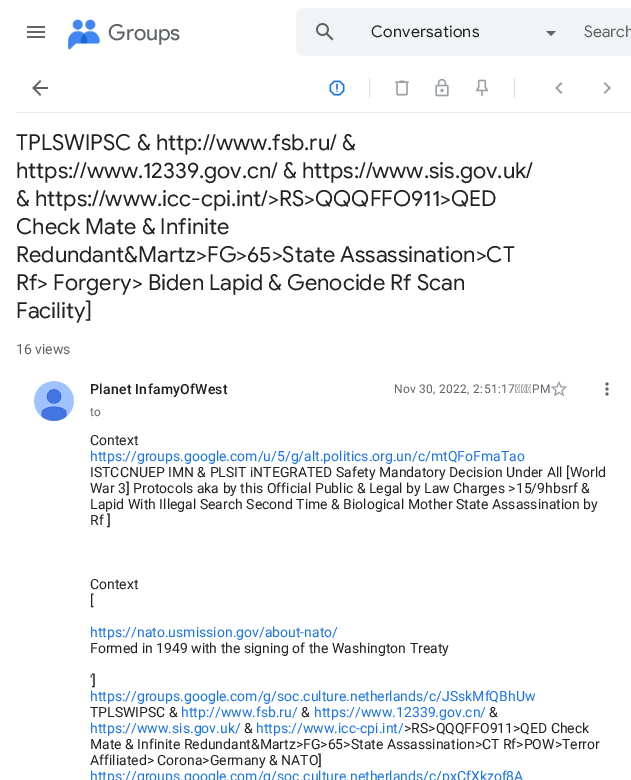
%!PS-Adobe-3.0
%%BoundingBox: 0 0 631 780
%%LanguageLevel: 3
%%Pages: 1
%%EndComments
%%BeginProlog
/m { moveto } bind def
/l { lineto } bind def
/h { closepath } bind def
/f { fill } bind def
/fn { [ exch dup neg 0 0 3 -1 roll 0 0 ] selectfont } def
/tx { moveto show } def
/bx { rectfill } def
/rr { 5 dict begin { /r /h /w /y /x } { exch def } forall
  x r add y moveto x w add y 2 copy h add r arct x w add y h add x 1 index r arct
  x y h add x y r arct x y 2 copy exch w add exch r arct closepath end } def
/im { 5 dict begin { /h /w /y /x /name } { exch def } forall
  gsave x y translate w h scale
  w h 8 [w 0 0 h 0 0] name (r) file false 3 colorimage grestore end } def
%%EndProlog
%%BeginSetup
<< /PageSize [631 780] >> setpagedevice
%%EndSetup
%%Page: 1 1
0 780 translate 1 -1 scale
4 setmiterlimit
1 setgray
0 0 631 780 bx
(image0.raw) 27 26 18 12 im
(image1.raw) 68 19 32 31 im
/ProductSans-Regular 22 fn
0.373 0.388 0.408 setrgbcolor
(Groups) 108 40 tx
0.945 0.953 0.957 setrgbcolor
296 8 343 48 8 rr f
(image2.raw) 316 23 18 18 im
/GoogleSans-Regular 16 fn
0.125 0.129 0.141 setrgbcolor
371 37 m 0.25 0 (Conversations) ashow
0.373 0.388 0.408 setrgbcolor
546 31 m 556 31 l 551 36 l h f
(Search) 584 37 tx
0.91 0.918 0.929 setrgbcolor
16 112 615 1 bx
(image3.raw) 32 80 16 16 im
(image4.raw) 329 80 16 16 im
0.867 setgray
369 78 1 20 bx
(image5.raw) 395 80 14 16 im
(image6.raw) 435 78 14 19 im
(image7.raw) 476 79 12 18 im
514 78 1 20 bx
(image8.raw) 555 82 8 12 im
(image9.raw) 603 82 8 12 im
/GoogleSans-Regular 22 fn
0.125 0.129 0.141 setrgbcolor
(TPLSWIPSC & http://www.fsb.ru/ &) 16 150 tx
(https://www.12339.gov.cn/ & https://www.sis.gov.uk/) 16 178 tx
(& https://www.icc-cpi.int/>RS>QQQFFO911>QED) 16 206 tx
(Check Mate & Infinite) 16 234 tx
(Redundant&Martz>FG>65>State Assassination>CT) 16 262 tx
(Rf> Forgery> Biden Lapid & Genocide Rf Scan) 16 290 tx
(Facility]) 16 318 tx
/Roboto-Regular 14 fn
0.373 0.388 0.408 setrgbcolor
(16 views) 16 354 tx
(image10.raw) 34 381 40 40 im
/Roboto-Medium 14 fn
0.125 0.129 0.141 setrgbcolor
90 394 m 0.25 0 (Planet InfamyOfWest) ashow
/Roboto-Regular 12 fn
0.373 0.388 0.408 setrgbcolor
394 393 m 0.3 0 (Nov 30, 2022, 2:51:17 PM) ashow
(image11.raw) 550 381 18 16 im
(image12.raw) 605 382 4 14 im
90 416 m 0.3 0 (to) ashow
/Roboto-Regular 14 fn
0.125 0.129 0.141 setrgbcolor
(Context) 90 445 tx
0.102 0.451 0.91 setrgbcolor
(https://groups.google.com/u/5/g/alt.politics.org.un/c/mtQFoFmaTao) 90 461 tx
0.125 0.129 0.141 setrgbcolor
(ISTCCNUEP IMN & PLSIT iNTEGRATED Safety Mandatory Decision Under All [World) 90 477 tx
(War 3] Protocols aka by this Official Public & Legal by Law Charges >15/9hbsrf &) 90 493 tx
(Lapid With Illegal Search Second Time & Biological Mother State Assassination by) 90 509 tx
(Rf ]) 90 525 tx
(Context) 90 589 tx
([) 90 605 tx
0.102 0.451 0.91 setrgbcolor
(https://nato.usmission.gov/about-nato/) 90 637 tx
0.125 0.129 0.141 setrgbcolor
(Formed in 1949 with the signing of the Washington Treaty) 90 653 tx
(']) 90 685 tx
0.102 0.451 0.91 setrgbcolor
(https://groups.google.com/g/soc.culture.netherlands/c/JSskMfQBhUw) 90 701 tx
0.125 0.129 0.141 setrgbcolor
(TPLSWIPSC &) 90 717 tx
0.102 0.451 0.91 setrgbcolor
(http://www.fsb.ru/) 181 717 tx
0.125 0.129 0.141 setrgbcolor
(&) 301 717 tx
0.102 0.451 0.91 setrgbcolor
(https://www.12339.gov.cn/) 314 717 tx
0.125 0.129 0.141 setrgbcolor
(&) 489 717 tx
0.102 0.451 0.91 setrgbcolor
(https://www.sis.gov.uk/) 90 733 tx
0.125 0.129 0.141 setrgbcolor
(&) 244 733 tx
0.102 0.451 0.91 setrgbcolor
(https://www.icc-cpi.int/) 256 733 tx
0.125 0.129 0.141 setrgbcolor
(>RS>QQQFFO911>QED Check) 404 733 tx
(Mate & Infinite Redundant&Martz>FG>65>State Assassination>CT Rf>POW>Terror) 90 749 tx
(Affiliated> Corona>Germany & NATO]) 90 765 tx
0.102 0.451 0.91 setrgbcolor
(https://groups.google.com/g/soc.culture.netherlands/c/pxCfXkzof8A) 90 781 tx
showpage
%%EOF
